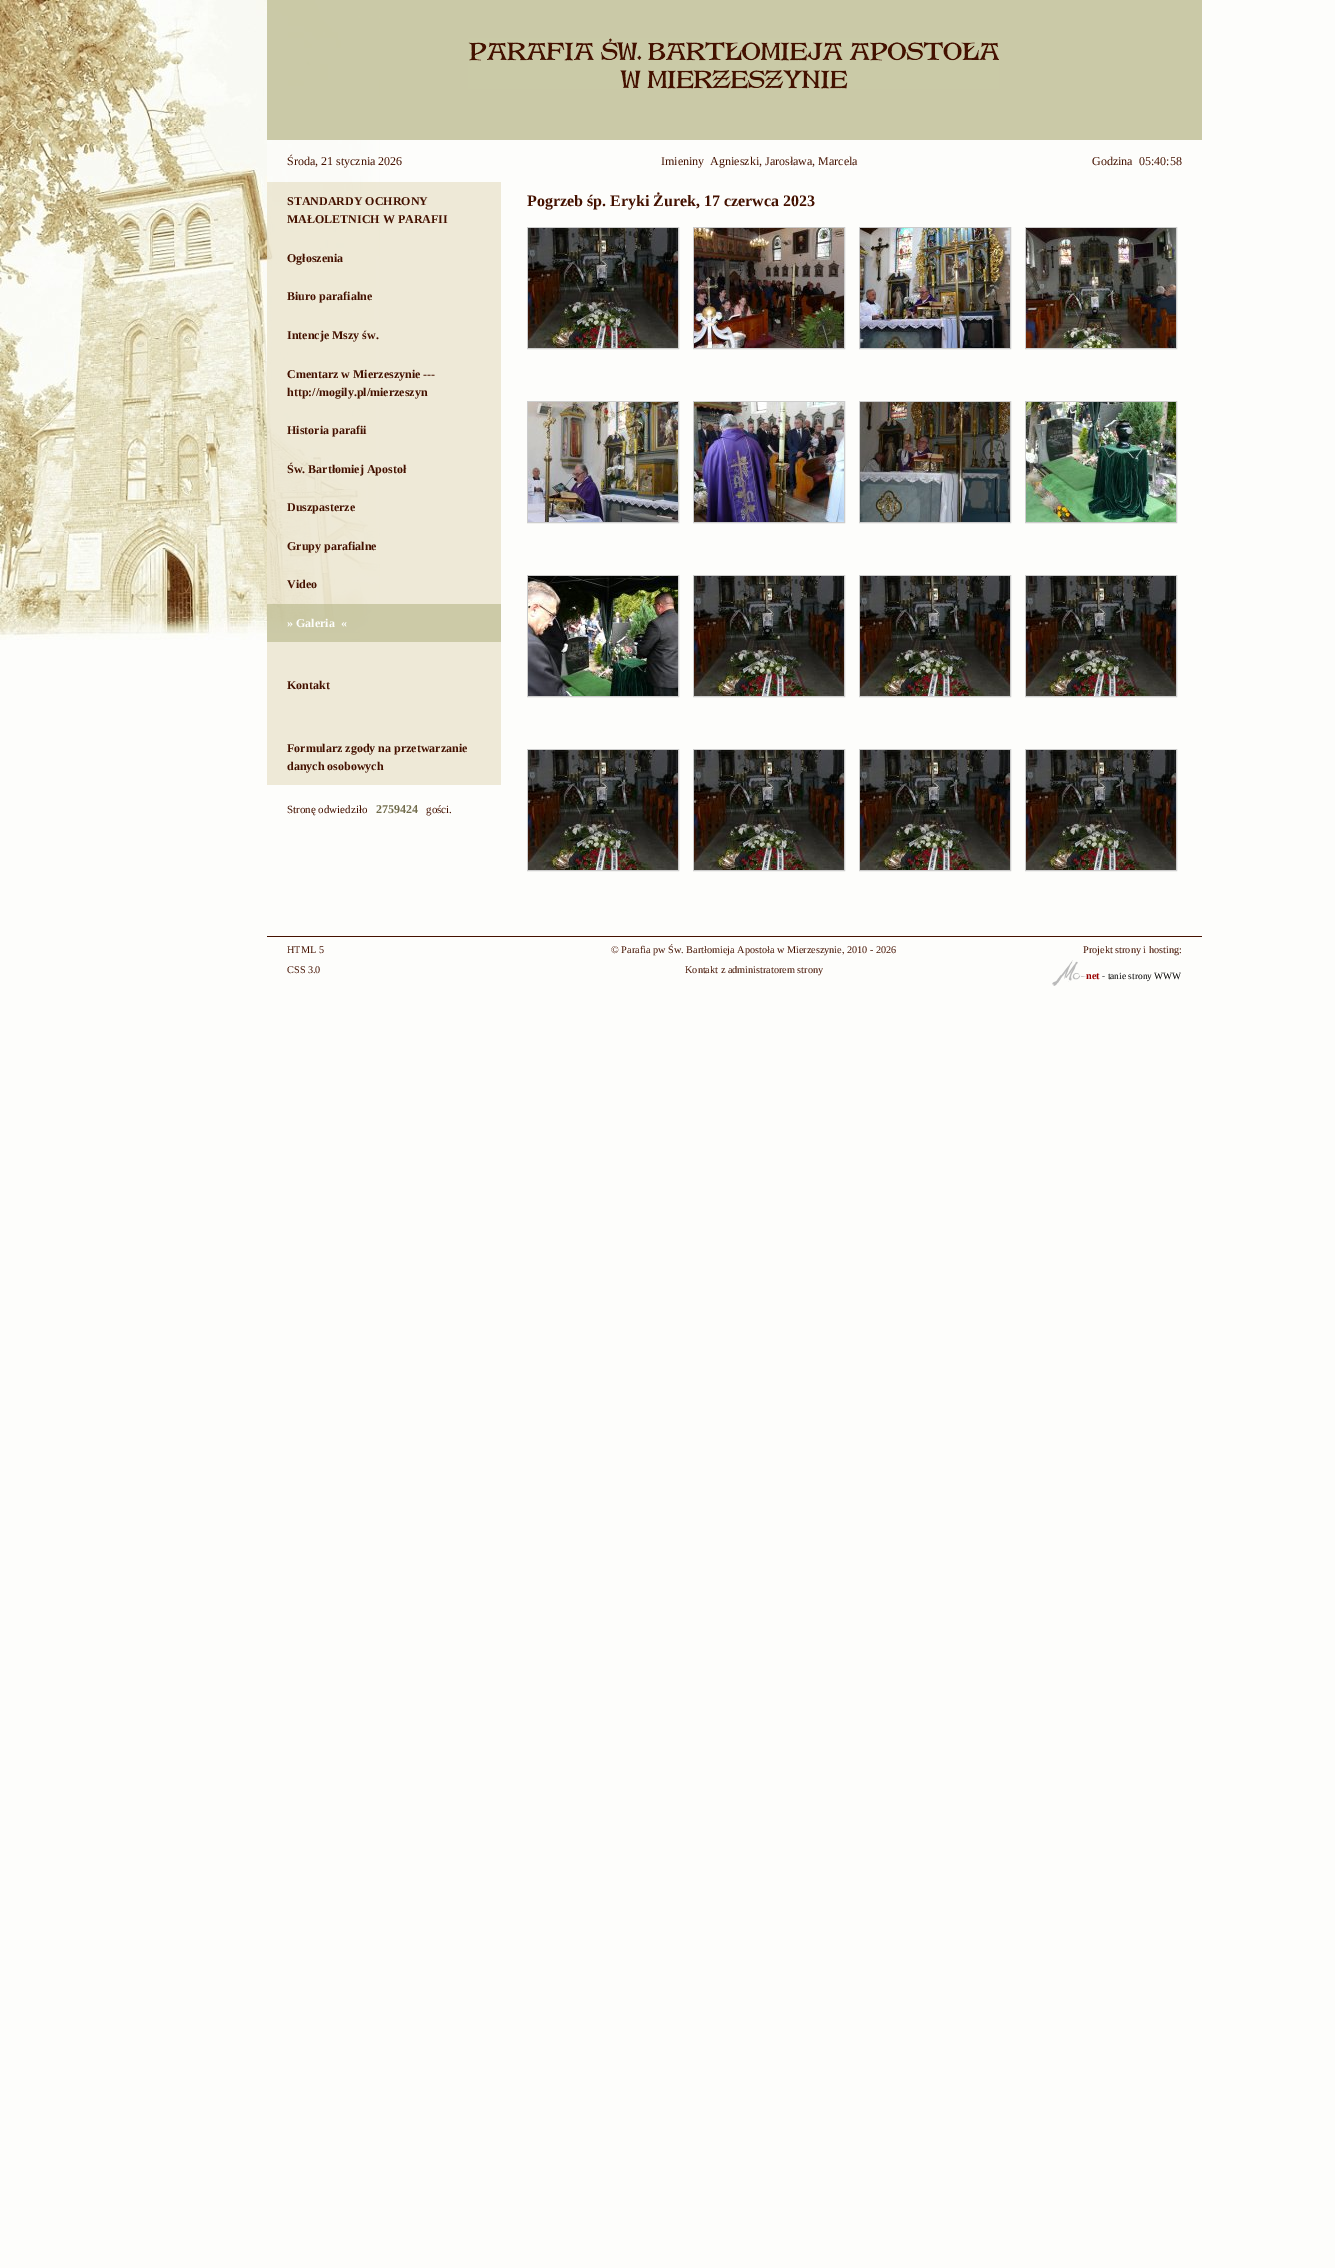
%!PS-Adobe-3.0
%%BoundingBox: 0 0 1335 2268
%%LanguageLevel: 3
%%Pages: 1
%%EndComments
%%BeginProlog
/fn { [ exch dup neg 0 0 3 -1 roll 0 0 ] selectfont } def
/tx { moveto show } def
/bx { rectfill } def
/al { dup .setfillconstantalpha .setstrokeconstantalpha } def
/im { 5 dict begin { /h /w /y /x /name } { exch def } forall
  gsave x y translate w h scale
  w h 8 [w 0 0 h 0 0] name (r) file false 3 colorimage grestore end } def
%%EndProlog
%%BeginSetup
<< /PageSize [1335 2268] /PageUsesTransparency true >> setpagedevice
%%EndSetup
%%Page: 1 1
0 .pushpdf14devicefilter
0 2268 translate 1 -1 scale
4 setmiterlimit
0.992 0.992 0.984 setrgbcolor
0 0 1335 2268 bx
(image0.raw) 0 0 380 640 im
0.59 al
0.992 0.992 0.988 setrgbcolor
267 0 112 639 bx
0.83 al
0.753 0.749 0.588 setrgbcolor
267 0 935 140 bx
1 al
(image1.raw) 468 38 531 51 im
/LiberationSerif-Regular 12 fn
0.267 0.067 0 setrgbcolor
(Środa, 21 stycznia 2026) 287 165 tx
(Imieniny  Agnieszki, Jarosława, Marcela) 661 165 tx
(Godzina) 1092 165 tx
(05:40:58) 1139 165 tx
0.59 al
0.894 0.859 0.741 setrgbcolor
267 182 234 603 bx
/LiberationSerif-Bold 12 fn
1 al
0.267 0.067 0 setrgbcolor
(STANDARDY OCHRONY) 287 205 tx
(MAŁOLETNICH W PARAFII) 287 223 tx
(Ogłoszenia) 287 262 tx
(Biuro parafialne) 287 300 tx
(Intencje Mszy św.) 287 339 tx
(Cmentarz w Mierzeszynie ---) 287 378 tx
(http://mogily.pl/mierzeszyn) 287 396 tx
(Historia parafii) 287 434 tx
(Św. Bartłomiej Apostoł) 287 473 tx
(Duszpasterze) 287 511 tx
(Grupy parafialne) 287 550 tx
(Video) 287 588 tx
0.59 al
0.706 0.706 0.525 setrgbcolor
267 604 234 38 bx
1 al
0.992 0.992 0.984 setrgbcolor
(» Galeria  «) 287 627 tx
0.267 0.067 0 setrgbcolor
(Kontakt) 287 689 tx
(Formularz zgody na przetwarzanie) 287 752 tx
(danych osobowych) 287 770 tx
/LiberationSerif-Regular 11 fn
(Stronę odwiedziło) 287 813 tx
/LiberationSerif-Bold 12 fn
0.439 0.42 0.29 setrgbcolor
(2759424) 376 813 tx
/LiberationSerif-Regular 11 fn
0.267 0.067 0 setrgbcolor
(gości.) 426 813 tx
/LiberationSerif-Bold 16 fn
(Pogrzeb śp. Eryki Żurek, 17 czerwca 2023) 527 206 tx
0.8 setgray
527.5 227.5 151 121 rectstroke
(image2.raw) 528 228 150 120 im
693.5 227.5 151 121 rectstroke
(image3.raw) 694 228 150 120 im
859.5 227.5 151 121 rectstroke
(image4.raw) 860 228 150 120 im
1025.5 227.5 151 121 rectstroke
(image5.raw) 1026 228 150 120 im
527.5 401.5 151 121 rectstroke
(image6.raw) 528 402 150 120 im
693.5 401.5 151 121 rectstroke
(image7.raw) 694 402 150 120 im
859.5 401.5 151 121 rectstroke
(image8.raw) 860 402 150 120 im
1025.5 401.5 151 121 rectstroke
(image9.raw) 1026 402 150 120 im
527.5 575.5 151 121 rectstroke
(image10.raw) 528 576 150 120 im
693.5 575.5 151 121 rectstroke
(image2.raw) 694 576 150 120 im
859.5 575.5 151 121 rectstroke
(image2.raw) 860 576 150 120 im
1025.5 575.5 151 121 rectstroke
(image2.raw) 1026 576 150 120 im
527.5 749.5 151 121 rectstroke
(image2.raw) 528 750 150 120 im
693.5 749.5 151 121 rectstroke
(image2.raw) 694 750 150 120 im
859.5 749.5 151 121 rectstroke
(image2.raw) 860 750 150 120 im
1025.5 749.5 151 121 rectstroke
(image2.raw) 1026 750 150 120 im
0.267 0.067 0 setrgbcolor
267 936 935 1 bx
/LiberationSerif-Regular 10.25 fn
(HTML 5) 287 953 tx
(CSS 3.0) 287 973 tx
(© Parafia pw Św. Bartłomieja Apostoła w Mierzeszynie, 2010 - 2026) 611 953 tx
(Kontakt z administratorem strony) 685 973 tx
(Projekt strony i hosting:) 1083 953 tx
(image11.raw) 1052 960 34 26 im
/LiberationSerif-Bold 10.25 fn
0.6 0 0 setrgbcolor
(net) 1086 979 tx
/LiberationSerif-Regular 9.5 fn
0 setgray
(- tanie strony WWW) 1102 979 tx
.poppdf14devicefilter showpage
%%EOF
